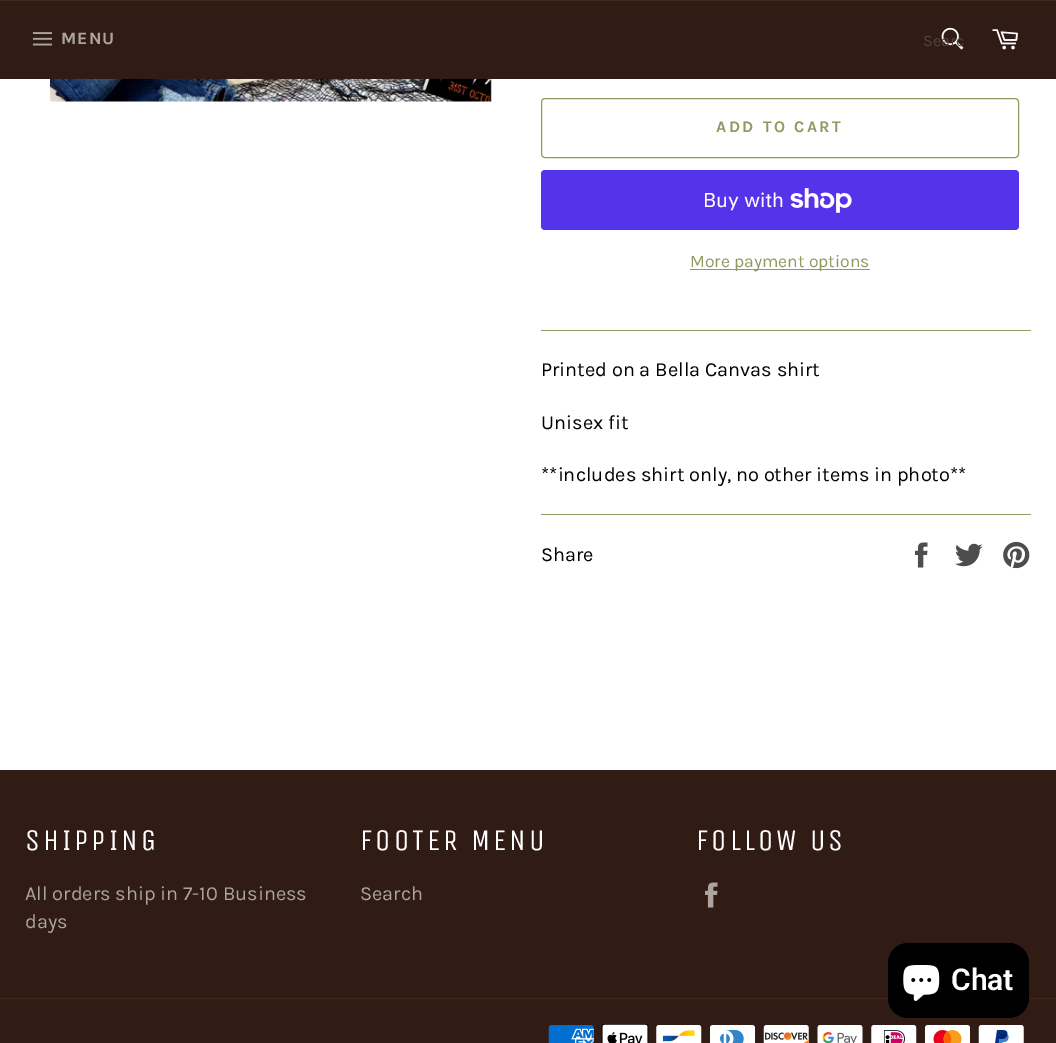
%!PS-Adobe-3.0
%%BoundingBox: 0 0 1056 1043
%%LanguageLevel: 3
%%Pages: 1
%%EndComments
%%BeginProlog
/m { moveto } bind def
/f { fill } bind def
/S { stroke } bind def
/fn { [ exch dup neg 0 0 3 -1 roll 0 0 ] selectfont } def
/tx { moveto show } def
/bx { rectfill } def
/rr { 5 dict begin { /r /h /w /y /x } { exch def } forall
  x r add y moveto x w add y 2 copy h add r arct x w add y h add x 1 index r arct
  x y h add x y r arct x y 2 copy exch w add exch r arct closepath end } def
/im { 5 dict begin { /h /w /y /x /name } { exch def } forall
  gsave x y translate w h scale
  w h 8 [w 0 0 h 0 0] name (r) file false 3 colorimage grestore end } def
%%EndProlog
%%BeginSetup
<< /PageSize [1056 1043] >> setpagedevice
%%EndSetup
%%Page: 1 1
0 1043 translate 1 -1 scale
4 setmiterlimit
1 setgray
0 0 1056 1043 bx
0.188 0.11 0.078 setrgbcolor
0 1 1056 78 bx
0.259 0.153 0.11 setrgbcolor
0 0 1056 1 bx
(image0.raw) 32 32 21 14 im
/Karla-Bold 17.5 fn
0.675 0.643 0.631 setrgbcolor
61 44 m 1 0 (MENU) ashow
(image1.raw) 941 27 23 23 im
/Karla-Regular 16.25 fn
0.329 0.263 0.239 setrgbcolor
(Searc) 923 46 tx
(image2.raw) 992 29 26 21 im
(image3.raw) 50 79 442 23 im
0.569 0.6 0.376 setrgbcolor
541.5 98.5 477 59 3.5 rr S
/Karla-Bold 16.25 fn
716 132 m 2.5 0 (ADD TO CART) ashow
0.329 0.2 0.922 setrgbcolor
541 170 478 60 4 rr f
/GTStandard-Regular 20 fn
1 setgray
(Buy with) 703 207 tx
(image4.raw) 790 188 62 25 im
0.569 0.6 0.376 setrgbcolor
690 269 180 1 bx
/Karla-Regular 17.5 fn
(More payment options) 690 267 tx
541 330 490 1 bx
/Karla-Regular 20 fn
0 setgray
(Printed on a Bella Canvas shirt) 541 376 tx
(Unisex fit) 541 429 tx
(**includes shirt only, no other items in photo**) 541 481 tx
0.569 0.6 0.376 setrgbcolor
541 514 490 1 bx
0 setgray
(Share) 541 561 tx
(image5.raw) 915 542 13 26 im
(image6.raw) 955 543 28 24 im
(image7.raw) 1003 541 27 28 im
0.188 0.11 0.078 setrgbcolor
0 770 1056 273 bx
/UnicaOne-Regular 30 fn
1 setgray
25 850 m 3 0 (SHIPPING) ashow
/Karla-Regular 20 fn
0.675 0.643 0.631 setrgbcolor
(All orders ship in 7-10 Business) 25 900 tx
(days) 25 928 tx
/UnicaOne-Regular 30 fn
1 setgray
360 850 m 3 0 (FOOTER MENU) ashow
/Karla-Regular 20 fn
0.675 0.643 0.631 setrgbcolor
(Search) 360 900 tx
/UnicaOne-Regular 30 fn
1 setgray
696 850 m 3 0 (FOLLOW US) ashow
(image8.raw) 705 882 13 26 im
0.259 0.153 0.11 setrgbcolor
0 998 1056 1 bx
(image9.raw) 548 1025 46 18 im
(image10.raw) 601 1024 48 19 im
(image11.raw) 656 1025 46 18 im
(image12.raw) 710 1025 45 18 im
(image13.raw) 763 1025 46 18 im
(image14.raw) 817 1025 46 18 im
(image15.raw) 871 1025 46 18 im
(image16.raw) 925 1025 45 18 im
(image17.raw) 978 1025 46 18 im
0 setgray
888 943 141 75 20 rr f
(image18.raw) 903 965 37 36 im
/Roboto-SemiBold 30 fn
1 setgray
(Chat) 951 990 tx
showpage
%%EOF
